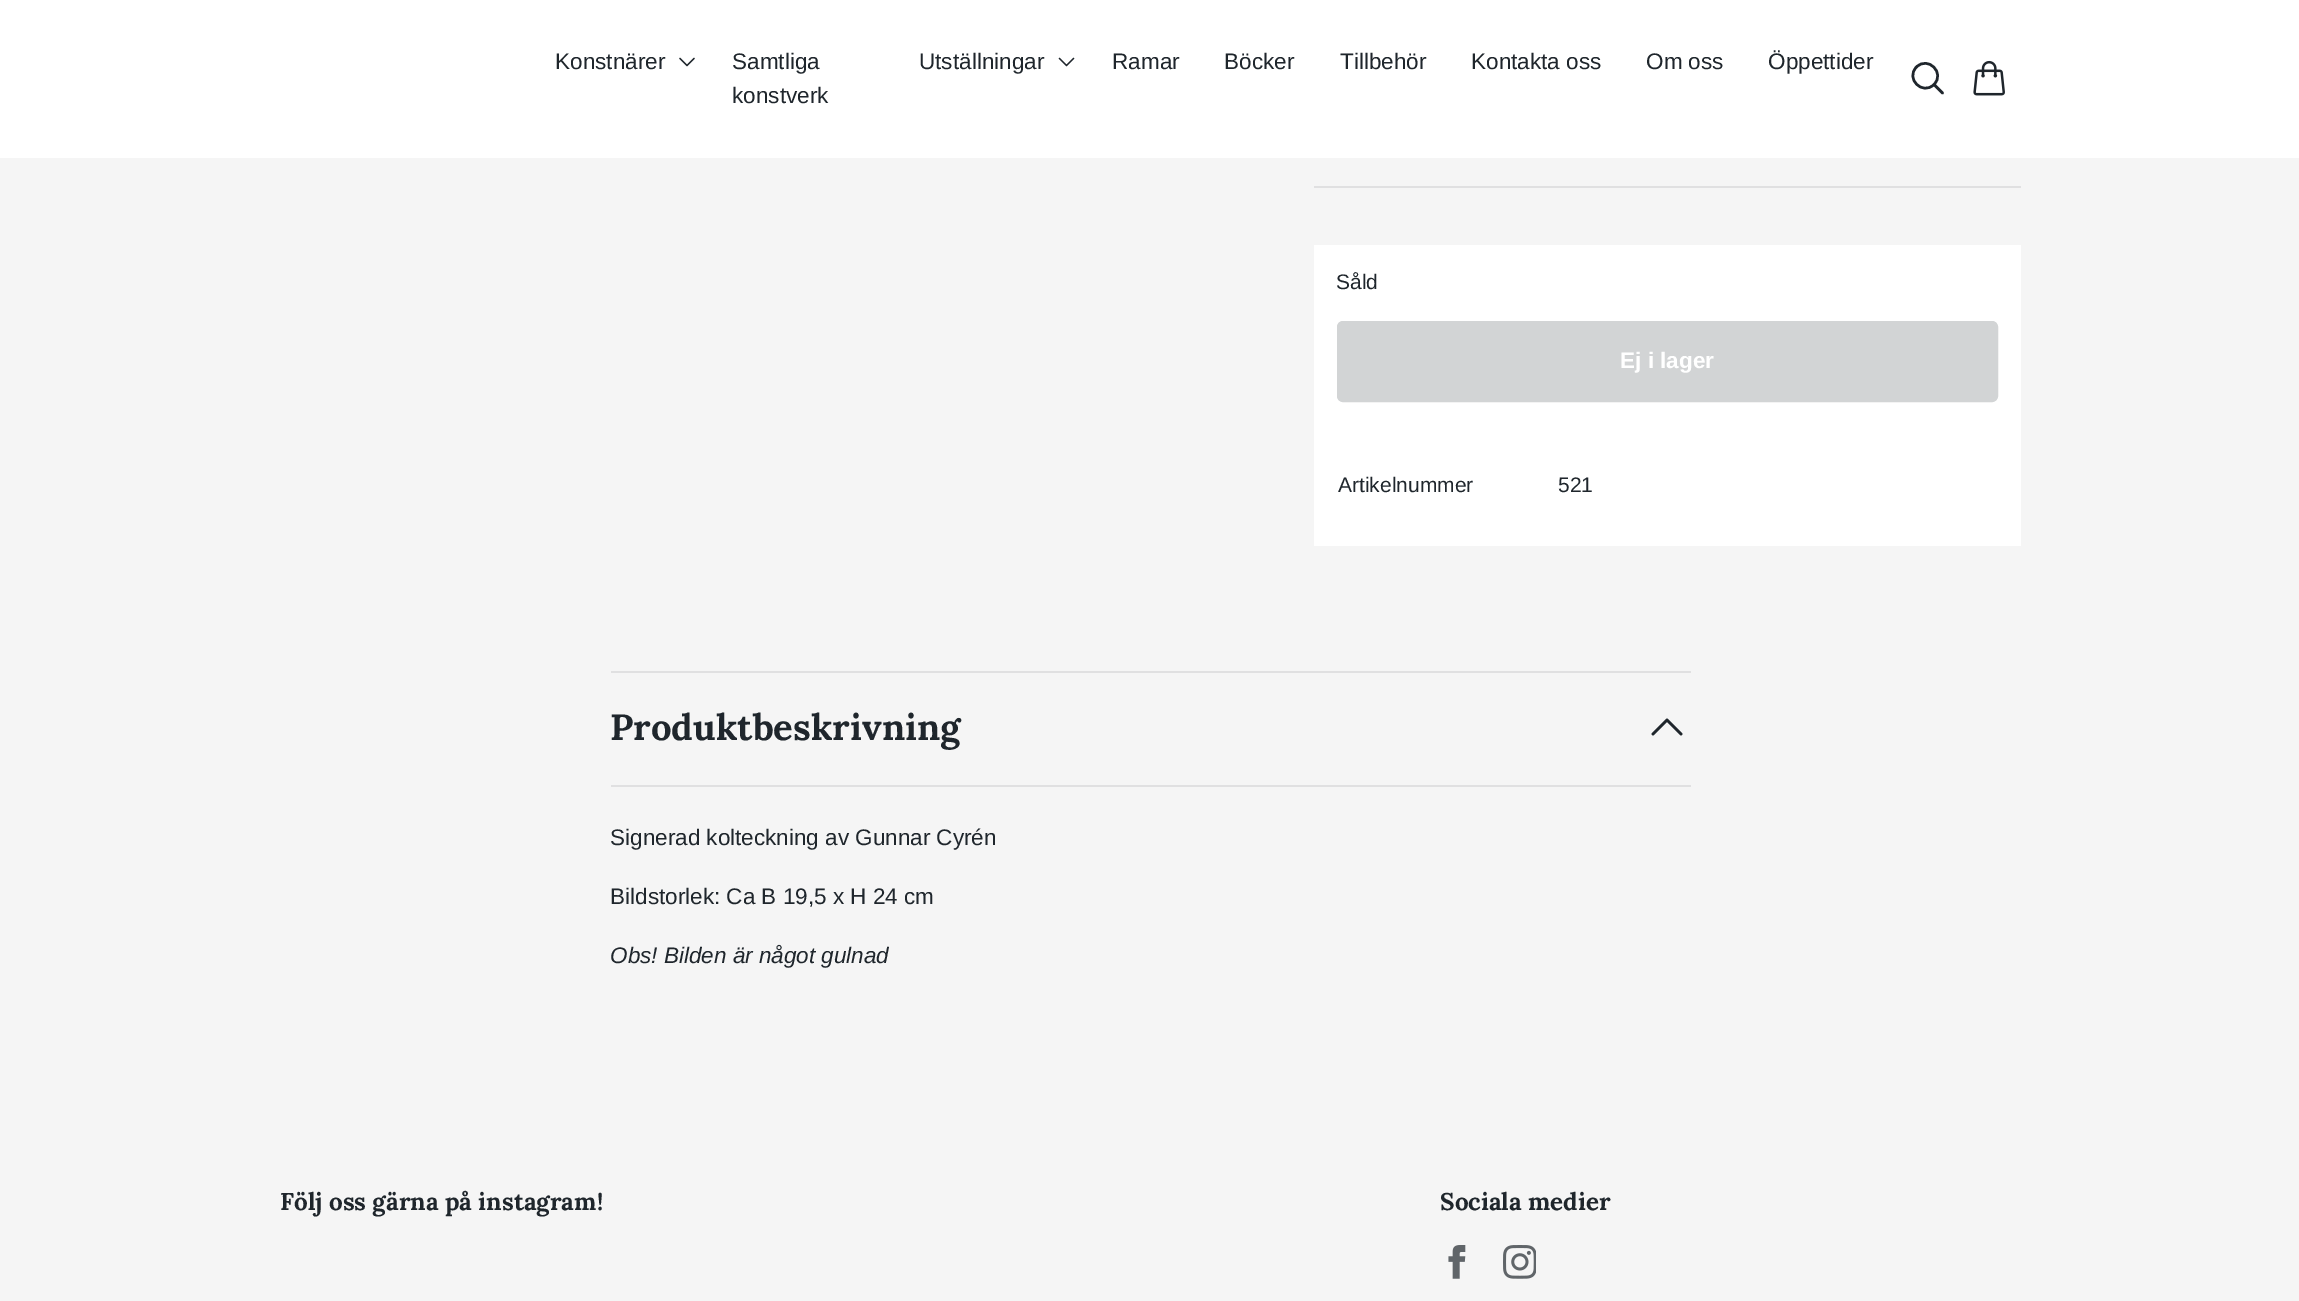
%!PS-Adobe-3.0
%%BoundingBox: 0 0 2299 1301
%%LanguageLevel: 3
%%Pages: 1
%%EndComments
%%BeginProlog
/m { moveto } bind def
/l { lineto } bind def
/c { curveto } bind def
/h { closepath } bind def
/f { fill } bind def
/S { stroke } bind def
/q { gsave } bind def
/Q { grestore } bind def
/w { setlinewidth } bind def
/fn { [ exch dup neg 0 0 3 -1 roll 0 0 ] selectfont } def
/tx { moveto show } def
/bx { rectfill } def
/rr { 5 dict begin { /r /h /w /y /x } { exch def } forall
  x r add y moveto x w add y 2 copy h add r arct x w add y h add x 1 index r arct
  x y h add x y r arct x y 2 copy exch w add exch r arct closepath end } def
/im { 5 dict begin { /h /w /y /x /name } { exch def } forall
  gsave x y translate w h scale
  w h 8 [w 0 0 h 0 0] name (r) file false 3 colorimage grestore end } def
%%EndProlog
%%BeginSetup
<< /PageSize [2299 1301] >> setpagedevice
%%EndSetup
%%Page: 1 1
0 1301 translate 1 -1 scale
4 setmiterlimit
0.961 setgray
0 0 2299 1301 bx
1 setgray
0 0 2299 158 bx
/LiberationSans-Regular 22.5 fn
0.122 0.149 0.173 setrgbcolor
(Konstnärer) 555 69 tx
1.4 w
1 setlinecap
1 setlinejoin
694 58.5 m 687 65.5 l 680 58.5 l S
(Samtliga) 732 69 tx
(konstverk) 732 103 tx
(Utställningar) 919 69 tx
1073.5 58.5 m 1066.5 65.5 l 1059.5 58.5 l S
(Ramar) 1112 69 tx
(Böcker) 1224 69 tx
(Tillbehör) 1340 69 tx
(Kontakta oss) 1471 69 tx
(Om oss) 1646 69 tx
(Öppettider) 1768 69 tx
2.5 w
1942.5 93 m 1934 84.5 l 1934 84.5 m 1945.5 73 1928 55.5 1916.5 67 c 1905 78.5 1922.5 96 1934 84.5 c h S
(image0.raw) 1973 60 32 36 im
0.878 0.878 0.882 setrgbcolor
1314 186 707 2 bx
1 setgray
1314 245 707 301 bx
/LiberationSans-Regular 21 fn
0.122 0.149 0.173 setrgbcolor
(Såld) 1336 289 tx
0.824 0.831 0.835 setrgbcolor
1338 322 659 79 5 rr q f Q
2 w
0 setlinecap
0 setlinejoin
S
/LiberationSans-Bold 22.5 fn
1 setgray
(Ej i lager) 1620 368 tx
/LiberationSans-Regular 21 fn
0.122 0.149 0.173 setrgbcolor
(Artikelnummer) 1338 492 tx
(521) 1558 492 tx
0.878 0.878 0.882 setrgbcolor
611 671 1080 2 bx
/Lora-Bold 36.5 fn
0.122 0.149 0.173 setrgbcolor
(Produktbeskrivning) 610 740 tx
2.8 w
1 setlinecap
1 setlinejoin
1653 734 m 1667 720 l 1681 734 l S
0.878 0.878 0.882 setrgbcolor
611 785 1080 2 bx
/LiberationSans-Regular 22.5 fn
0.122 0.149 0.173 setrgbcolor
(Signerad kolteckning av Gunnar Cyrén) 610 845 tx
(Bildstorlek: Ca B 19,5 x H 24 cm) 610 904 tx
/LiberationSans-Italic 22.5 fn
(Obs! Bilden är något gulnad) 610 963 tx
/Lora-Bold 24.25 fn
(Följ oss gärna på instagram!) 280 1210 tx
(Sociala medier) 1440 1210 tx
(image1.raw) 1448 1245 18 34 im
(image2.raw) 1503 1245 33 34 im
showpage
%%EOF
